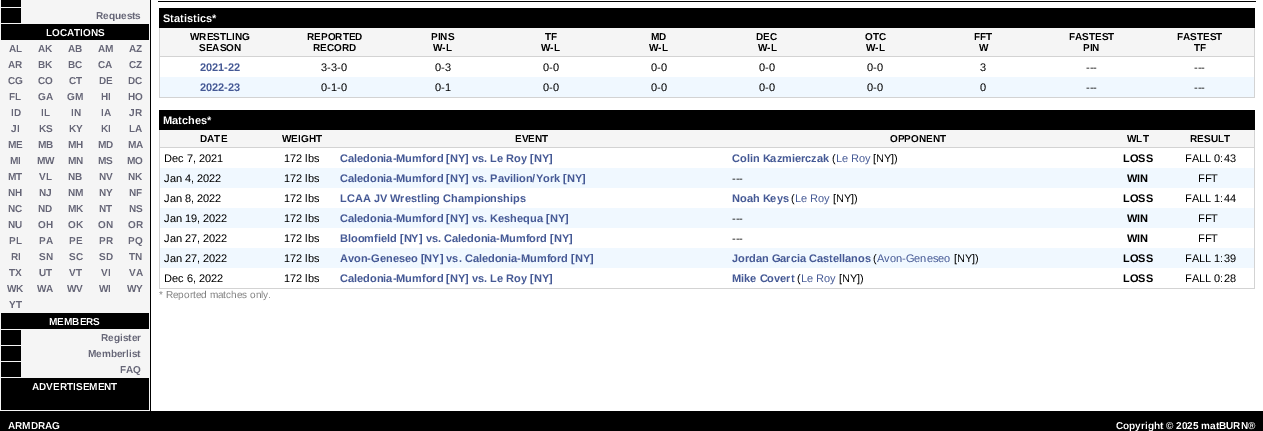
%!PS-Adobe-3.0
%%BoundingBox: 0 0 1263 431
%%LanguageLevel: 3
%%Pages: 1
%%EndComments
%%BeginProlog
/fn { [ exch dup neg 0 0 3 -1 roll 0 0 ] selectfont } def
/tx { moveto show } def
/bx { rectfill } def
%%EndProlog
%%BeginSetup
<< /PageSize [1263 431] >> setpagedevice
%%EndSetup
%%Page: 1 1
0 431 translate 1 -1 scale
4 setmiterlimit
0.961 setgray
0 0 1263 431 bx
1 setgray
151 0 1112 411 bx
0 setgray
150 0 1 411 bx
1 0 20 7 bx
1 8 20 15 bx
/LiberationSans-Bold 10 fn
0.4 0.4 0.467 setrgbcolor
(Requests) 96 19 tx
0 setgray
1 24 148 16 bx
1 setgray
(LOCATIONS) 46 36 tx
0.4 0.4 0.467 setrgbcolor
(AL) 9 52 tx
(AK) 38 52 tx
(AB) 68 52 tx
(AM) 98 52 tx
(AZ) 129 52 tx
(AR) 8 68 tx
(BK) 38 68 tx
(BC) 68 68 tx
(CA) 98 68 tx
(CZ) 129 68 tx
(CG) 8 84 tx
(CO) 38 84 tx
(CT) 69 84 tx
(DE) 99 84 tx
(DC) 128 84 tx
(FL) 9 100 tx
(GA) 38 100 tx
(GM) 67 100 tx
(HI) 101 100 tx
(HO) 128 100 tx
(ID) 11 116 tx
(IL) 41 116 tx
(IN) 71 116 tx
(IA) 101 116 tx
(JR) 129 116 tx
(JI) 11 132 tx
(KS) 39 132 tx
(KY) 69 132 tx
(KI) 101 132 tx
(LA) 129 132 tx
(ME) 8 148 tx
(MB) 38 148 tx
(MH) 68 148 tx
(MD) 98 148 tx
(MA) 128 148 tx
(MI) 10 164 tx
(MW) 37 164 tx
(MN) 68 164 tx
(MS) 98 164 tx
(MO) 127 164 tx
(MT) 8 180 tx
(VL) 39 180 tx
(NB) 68 180 tx
(NV) 99 180 tx
(NK) 128 180 tx
(NH) 8 196 tx
(NJ) 39 196 tx
(NM) 68 196 tx
(NY) 99 196 tx
(NF) 129 196 tx
(NC) 8 212 tx
(ND) 38 212 tx
(MK) 68 212 tx
(NT) 99 212 tx
(NS) 129 212 tx
(NU) 8 228 tx
(OH) 38 228 tx
(OK) 68 228 tx
(ON) 98 228 tx
(OR) 128 228 tx
(PL) 9 244 tx
(PA) 39 244 tx
(PE) 69 244 tx
(PR) 99 244 tx
(PQ) 128 244 tx
(RI) 11 260 tx
(SN) 39 260 tx
(SC) 69 260 tx
(SD) 99 260 tx
(TN) 129 260 tx
(TX) 9 276 tx
(UT) 39 276 tx
(VT) 69 276 tx
(VI) 101 276 tx
(VA) 129 276 tx
(WK) 7 292 tx
(WA) 37 292 tx
(WV) 67 292 tx
(WI) 99 292 tx
(WY) 127 292 tx
(YT) 9 308 tx
0 setgray
1 313 148 16 bx
1 setgray
(MEMBERS) 49 325 tx
0 setgray
1 330 20 15 bx
0.4 0.4 0.467 setrgbcolor
(Register) 101 341 tx
0 setgray
1 346 20 15 bx
0.4 0.4 0.467 setrgbcolor
(Memberlist) 88 357 tx
0 setgray
1 362 20 15 bx
0.4 0.4 0.467 setrgbcolor
(FAQ) 120 373 tx
0 setgray
1 378 148 32 bx
1 setgray
(ADVERTISEMENT) 32 390 tx
0 setgray
158 1 1098 1 bx
159 8 1096 20 bx
/LiberationSans-Bold 11 fn
1 setgray
(Statistics*) 163 22 tx
0.827 setgray
1254 28 1 70 bx
159 97 1096 1 bx
159 28 1 70 bx
0.961 setgray
160 28 1094 28 bx
/LiberationSans-Bold 10 fn
0 setgray
(WRESTLING) 190 40 tx
(SEASON) 199 51 tx
(REPORTED) 307 40 tx
(RECORD) 313 51 tx
(PINS) 431 40 tx
(W-L) 433 51 tx
(TF) 545 40 tx
(W-L) 541 51 tx
(MD) 651 40 tx
(W-L) 649 51 tx
(DEC) 756 40 tx
(W-L) 758 51 tx
(OTC) 865 40 tx
(W-L) 866 51 tx
(FFT) 974 40 tx
(W) 979 51 tx
(FASTEST) 1069 40 tx
(PIN) 1083 51 tx
0.827 setgray
160 56 1095 1 bx
0 setgray
(FASTEST) 1177 40 tx
(TF) 1194 51 tx
/LiberationSans-Bold 11 fn
0.271 0.349 0.584 setrgbcolor
(2021-22) 200 71 tx
/LiberationSans-Regular 11 fn
0 setgray
(3-3-0) 321 71 tx
(0-3) 435 71 tx
(0-0) 543 71 tx
(0-0) 651 71 tx
(0-0) 759 71 tx
(0-0) 867 71 tx
(3) 980 71 tx
(---) 1086 71 tx
(---) 1194 71 tx
0.941 0.973 1 setrgbcolor
160 77 1094 20 bx
/LiberationSans-Bold 11 fn
0.271 0.349 0.584 setrgbcolor
(2022-23) 200 91 tx
/LiberationSans-Regular 11 fn
0 setgray
(0-1-0) 321 91 tx
(0-1) 435 91 tx
(0-0) 543 91 tx
(0-0) 651 91 tx
(0-0) 759 91 tx
(0-0) 867 91 tx
(0) 980 91 tx
(---) 1086 91 tx
(---) 1194 91 tx
159 110 1096 20 bx
/LiberationSans-Bold 11 fn
1 setgray
(Matches*) 163 124 tx
0.827 setgray
1254 130 1 159 bx
159 288 1096 1 bx
159 130 1 159 bx
0.961 setgray
160 130 1094 17 bx
/LiberationSans-Bold 10 fn
0 setgray
(DATE) 200 142 tx
(WEIGHT) 282 142 tx
(EVENT) 515 142 tx
(OPPONENT) 890 142 tx
(WLT) 1127 142 tx
0.827 setgray
160 147 1095 1 bx
0 setgray
(RESULT) 1190 142 tx
/LiberationSans-Regular 11 fn
(Dec 7, 2021) 164 162 tx
(172 lbs) 284 162 tx
/LiberationSans-Bold 11 fn
0.271 0.349 0.584 setrgbcolor
(Caledonia-Mumford [NY] vs. Le Roy [NY]) 340 162 tx
(Colin Kazmierczak) 732 162 tx
/LiberationSans-Regular 11 fn
0 setgray
(\() 832 162 tx
0.271 0.349 0.584 setrgbcolor
(Le Roy) 836 162 tx
0 setgray
([NY]\)) 873 162 tx
/LiberationSans-Bold 11 fn
(LOSS) 1123 162 tx
/LiberationSans-Regular 11 fn
(FALL 0:43) 1185 162 tx
0.941 0.973 1 setrgbcolor
160 168 1094 20 bx
0 setgray
(Jan 4, 2022) 164 182 tx
(172 lbs) 284 182 tx
/LiberationSans-Bold 11 fn
0.271 0.349 0.584 setrgbcolor
(Caledonia-Mumford [NY] vs. Pavilion/York [NY]) 340 182 tx
/LiberationSans-Regular 11 fn
0 setgray
(---) 732 182 tx
/LiberationSans-Bold 11 fn
(WIN) 1127 182 tx
/LiberationSans-Regular 11 fn
(FFT) 1198 182 tx
(Jan 8, 2022) 164 202 tx
(172 lbs) 284 202 tx
/LiberationSans-Bold 11 fn
0.271 0.349 0.584 setrgbcolor
(LCAA JV Wrestling Championships) 340 202 tx
(Noah Keys) 732 202 tx
/LiberationSans-Regular 11 fn
0 setgray
(\() 791 202 tx
0.271 0.349 0.584 setrgbcolor
(Le Roy) 795 202 tx
0 setgray
([NY]\)) 833 202 tx
/LiberationSans-Bold 11 fn
(LOSS) 1123 202 tx
/LiberationSans-Regular 11 fn
(FALL 1:44) 1185 202 tx
0.941 0.973 1 setrgbcolor
160 208 1094 20 bx
0 setgray
(Jan 19, 2022) 164 222 tx
(172 lbs) 284 222 tx
/LiberationSans-Bold 11 fn
0.271 0.349 0.584 setrgbcolor
(Caledonia-Mumford [NY] vs. Keshequa [NY]) 340 222 tx
/LiberationSans-Regular 11 fn
0 setgray
(---) 732 222 tx
/LiberationSans-Bold 11 fn
(WIN) 1127 222 tx
/LiberationSans-Regular 11 fn
(FFT) 1198 222 tx
(Jan 27, 2022) 164 242 tx
(172 lbs) 284 242 tx
/LiberationSans-Bold 11 fn
0.271 0.349 0.584 setrgbcolor
(Bloomfield [NY] vs. Caledonia-Mumford [NY]) 340 242 tx
/LiberationSans-Regular 11 fn
0 setgray
(---) 732 242 tx
/LiberationSans-Bold 11 fn
(WIN) 1127 242 tx
/LiberationSans-Regular 11 fn
(FFT) 1198 242 tx
0.941 0.973 1 setrgbcolor
160 248 1094 20 bx
0 setgray
(Jan 27, 2022) 164 262 tx
(172 lbs) 284 262 tx
/LiberationSans-Bold 11 fn
0.271 0.349 0.584 setrgbcolor
(Avon-Geneseo [NY] vs. Caledonia-Mumford [NY]) 340 262 tx
(Jordan Garcia Castellanos) 732 262 tx
/LiberationSans-Regular 11 fn
0 setgray
(\() 873 262 tx
0.271 0.349 0.584 setrgbcolor
(Avon-Geneseo) 877 262 tx
0 setgray
([NY]\)) 954 262 tx
/LiberationSans-Bold 11 fn
(LOSS) 1123 262 tx
/LiberationSans-Regular 11 fn
(FALL 1:39) 1185 262 tx
(Dec 6, 2022) 164 282 tx
(172 lbs) 284 282 tx
/LiberationSans-Bold 11 fn
0.271 0.349 0.584 setrgbcolor
(Caledonia-Mumford [NY] vs. Le Roy [NY]) 340 282 tx
(Mike Covert) 732 282 tx
/LiberationSans-Regular 11 fn
0 setgray
(\() 797 282 tx
0.271 0.349 0.584 setrgbcolor
(Le Roy) 801 282 tx
0 setgray
([NY]\)) 839 282 tx
/LiberationSans-Bold 11 fn
(LOSS) 1123 282 tx
/LiberationSans-Regular 11 fn
(FALL 0:28) 1185 282 tx
/LiberationSans-Regular 10 fn
0.502 setgray
(* Reported matches only.) 159 298 tx
0 setgray
0 411 1263 20 bx
/LiberationSans-Bold 10 fn
1 setgray
(ARMDRAG) 8 429 tx
(Copyright © 2025 matBURN®) 1116 429 tx
showpage
%%EOF
